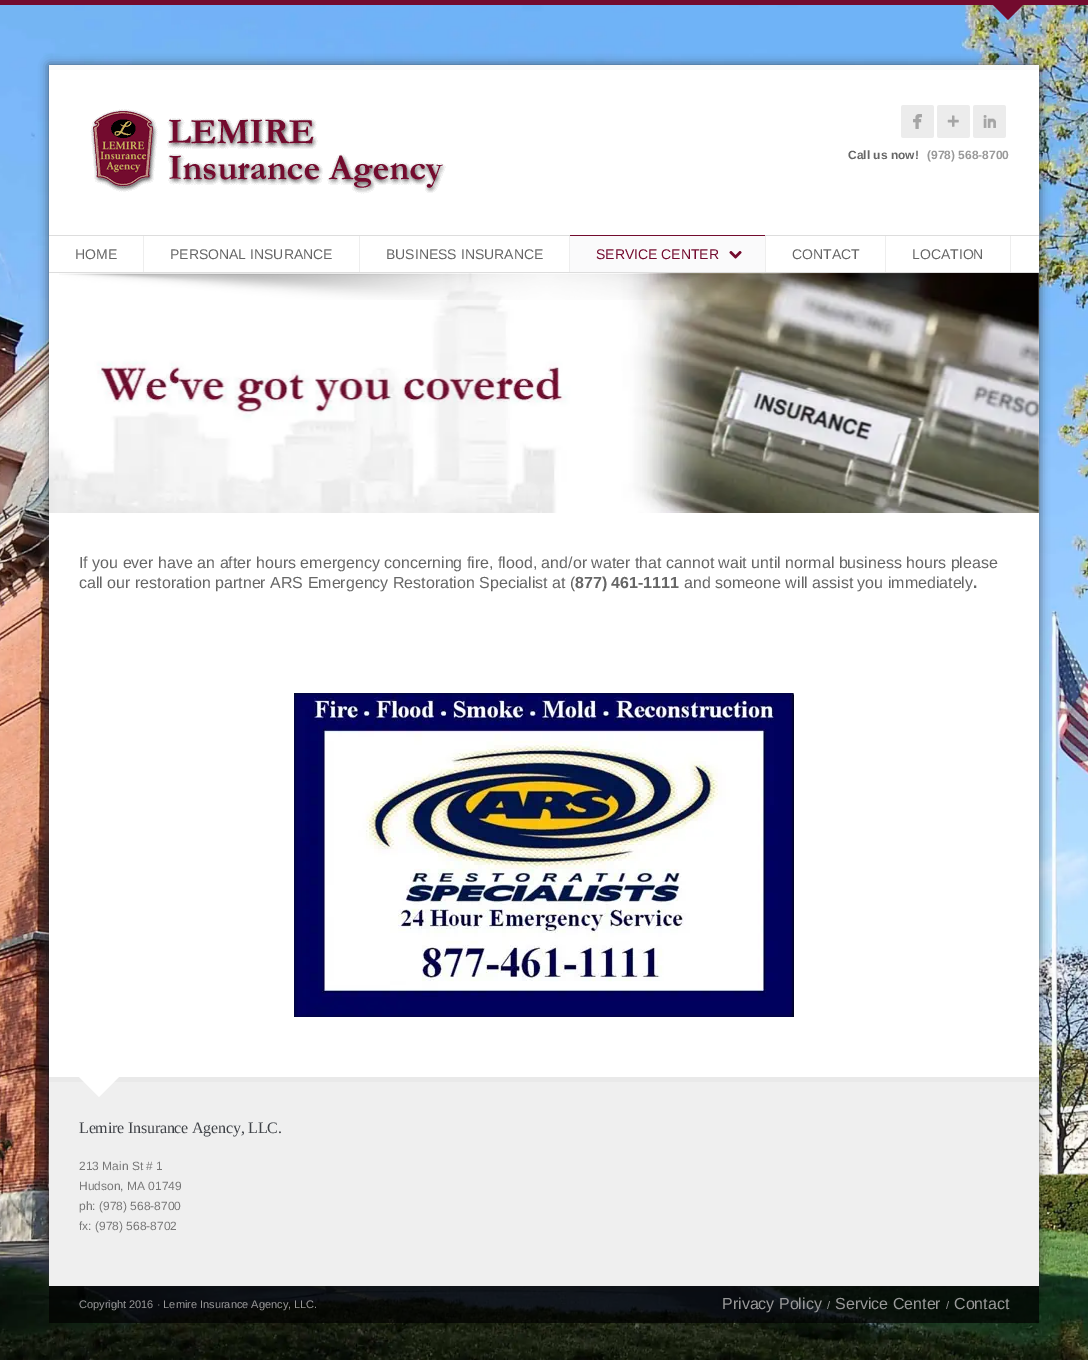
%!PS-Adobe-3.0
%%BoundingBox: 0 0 1088 1360
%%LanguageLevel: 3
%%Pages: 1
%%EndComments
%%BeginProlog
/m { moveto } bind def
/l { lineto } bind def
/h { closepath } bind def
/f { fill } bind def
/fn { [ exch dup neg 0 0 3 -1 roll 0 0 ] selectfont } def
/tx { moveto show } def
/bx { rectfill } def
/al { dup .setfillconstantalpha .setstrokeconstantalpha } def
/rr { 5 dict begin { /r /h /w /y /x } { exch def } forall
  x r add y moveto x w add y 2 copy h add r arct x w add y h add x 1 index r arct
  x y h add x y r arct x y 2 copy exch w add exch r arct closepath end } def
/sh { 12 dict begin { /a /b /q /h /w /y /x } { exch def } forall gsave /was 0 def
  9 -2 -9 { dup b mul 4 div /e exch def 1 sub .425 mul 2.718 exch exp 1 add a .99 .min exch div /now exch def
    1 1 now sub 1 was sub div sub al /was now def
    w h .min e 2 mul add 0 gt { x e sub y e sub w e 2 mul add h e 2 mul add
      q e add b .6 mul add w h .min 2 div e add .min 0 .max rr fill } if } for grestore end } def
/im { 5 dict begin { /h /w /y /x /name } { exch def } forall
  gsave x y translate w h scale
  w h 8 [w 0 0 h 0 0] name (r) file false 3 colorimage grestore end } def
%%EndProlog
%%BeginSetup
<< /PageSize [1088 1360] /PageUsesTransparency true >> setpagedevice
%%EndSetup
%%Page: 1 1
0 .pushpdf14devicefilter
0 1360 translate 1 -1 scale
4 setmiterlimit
1 setgray
0 0 1088 1360 bx
(image0.raw) 0 5 1088 1355 im
0.451 0.043 0.18 setrgbcolor
0 0 1088 5 bx
988 0 m 1028 0 l 1008 20 l h f
0.196 setgray
49 65 990 1221 0 5 0.75 sh
1 setgray
49 65 990 1012 bx
(image1.raw) 49 65 990 5 im
(image2.raw) 90 109 356 85 im
(image3.raw) 901 105 33 33 im
(image4.raw) 937 105 33 33 im
(image5.raw) 973 105 33 33 im
/LiberationSans-Bold 12 fn
0.4 setgray
(Call us now!) 848 159 tx
0.6 setgray
(\(978\) 568-8700) 927 159 tx
0.867 setgray
49 235 990 1 bx
49 272 990 1 bx
0.933 setgray
143 236 1 36 bx
/LiberationSans-Regular 14 fn
0.4 setgray
(HOME) 75 259 tx
0.933 setgray
359 236 1 36 bx
0.4 setgray
(PERSONAL INSURANCE) 170 259 tx
0.933 setgray
569 236 1 36 bx
0.4 setgray
(BUSINESS INSURANCE) 386 259 tx
0.933 setgray
765 236 1 36 bx
0.98 0.98 0.984 setrgbcolor
570 236 195 36 bx
0.451 0.043 0.18 setrgbcolor
570 235 195 1 bx
(SERVICE CENTER) 596 259 tx
(image6.raw) 729 251 13 8 im
0.933 setgray
885 236 1 36 bx
0.4 setgray
(CONTACT) 792 259 tx
0.933 setgray
1010 236 1 36 bx
0.4 setgray
(LOCATION) 912 259 tx
(image7.raw) 49 273 990 240 im
(image8.raw) 59 273 902 27 im
/LiberationSans-Regular 16 fn
(If you ever have an after hours emergency concerning fire, flood, and/or water that cannot wait until normal business hours please) 79 568 tx
(call our restoration partner ARS Emergency Restoration Specialist at \() 79 588 tx
/LiberationSans-Bold 16 fn
(877\) 461-1111) 575 588 tx
/LiberationSans-Regular 16 fn
(and someone will assist you immediately) 684 588 tx
/LiberationSans-Bold 16 fn
(.) 973 588 tx
(image9.raw) 294 693 500 324 im
0.937 setgray
49 1082 990 204 bx
0.914 setgray
49 1077 990 5 bx
1 setgray
79 1077 m 119 1077 l 99 1097 l h f
/LiberationSerif-Regular 16 fn
0.251 0.263 0.282 setrgbcolor
79 1133 m -0.2 0 (Lemire Insurance Agency, LLC.) ashow
/LiberationSans-Regular 12 fn
0.467 setgray
(213 Main St # 1) 79 1170 tx
(Hudson, MA 01749) 79 1190 tx
(ph: \(978\) 568-8700) 79 1210 tx
(fx: \(978\) 568-8702) 79 1230 tx
0.7 al
0 setgray
49 1286 990 37 bx
/LiberationSans-Regular 11 fn
1 al
0.6 setgray
(Copyright 2016 · Lemire Insurance Agency, LLC.) 79 1308 tx
/LiberationSans-Regular 16 fn
(Privacy Policy) 722 1309 tx
/LiberationSans-Regular 11 fn
(/) 827 1309 tx
/LiberationSans-Regular 16 fn
(Service Center) 835 1309 tx
/LiberationSans-Regular 11 fn
(/) 946 1309 tx
/LiberationSans-Regular 16 fn
(Contact) 954 1309 tx
.poppdf14devicefilter showpage
%%EOF
